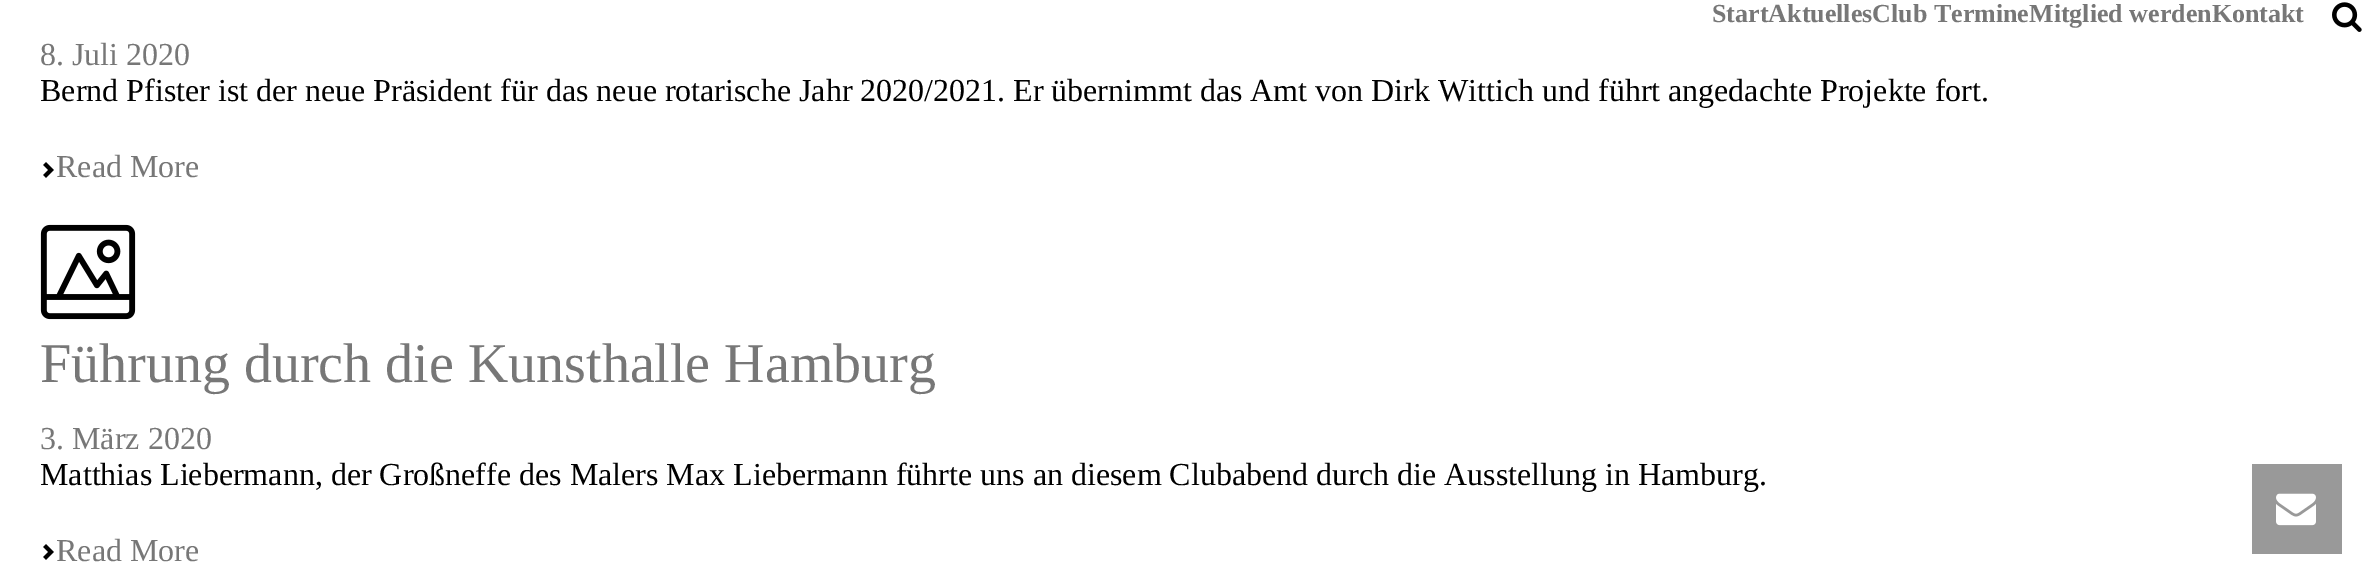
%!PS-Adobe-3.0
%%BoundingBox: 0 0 2362 583
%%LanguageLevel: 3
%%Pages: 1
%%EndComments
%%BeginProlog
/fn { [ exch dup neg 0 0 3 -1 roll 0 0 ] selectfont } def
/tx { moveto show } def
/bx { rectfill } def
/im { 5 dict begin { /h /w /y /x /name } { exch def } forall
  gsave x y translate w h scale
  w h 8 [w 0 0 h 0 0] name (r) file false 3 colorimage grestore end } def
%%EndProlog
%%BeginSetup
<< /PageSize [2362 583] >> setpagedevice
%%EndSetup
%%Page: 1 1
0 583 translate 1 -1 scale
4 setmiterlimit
1 setgray
0 0 2362 583 bx
/LiberationSerif-Bold 26 fn
0.467 setgray
(StartAktuellesClub TermineMitglied werdenKontakt) 1712 22 tx
(image0.raw) 2332 2 30 30 im
/LiberationSerif-Regular 32 fn
(8. Juli 2020) 40 65 tx
0 setgray
(Bernd Pfister ist der neue Präsident für das neue rotarische Jahr 2020/2021. Er übernimmt das Amt von Dirk Wittich und führt angedachte Projekte fort.) 40 101 tx
(image1.raw) 43 162 11 16 im
0.467 setgray
(Read More) 56 177 tx
(image2.raw) 40 224 96 96 im
/LiberationSerif-Regular 56 fn
(Führung durch die Kunsthalle Hamburg) 40 382 tx
/LiberationSerif-Regular 32 fn
(3. März 2020) 40 449 tx
0 setgray
(Matthias Liebermann, der Großneffe des Malers Max Liebermann führte uns an diesem Clubabend durch die Ausstellung in Hamburg.) 40 485 tx
(image1.raw) 43 544 11 16 im
0.467 setgray
(Read More) 56 561 tx
0.6 setgray
2252 464 90 90 bx
(image3.raw) 2276 493 40 33 im
showpage
%%EOF
